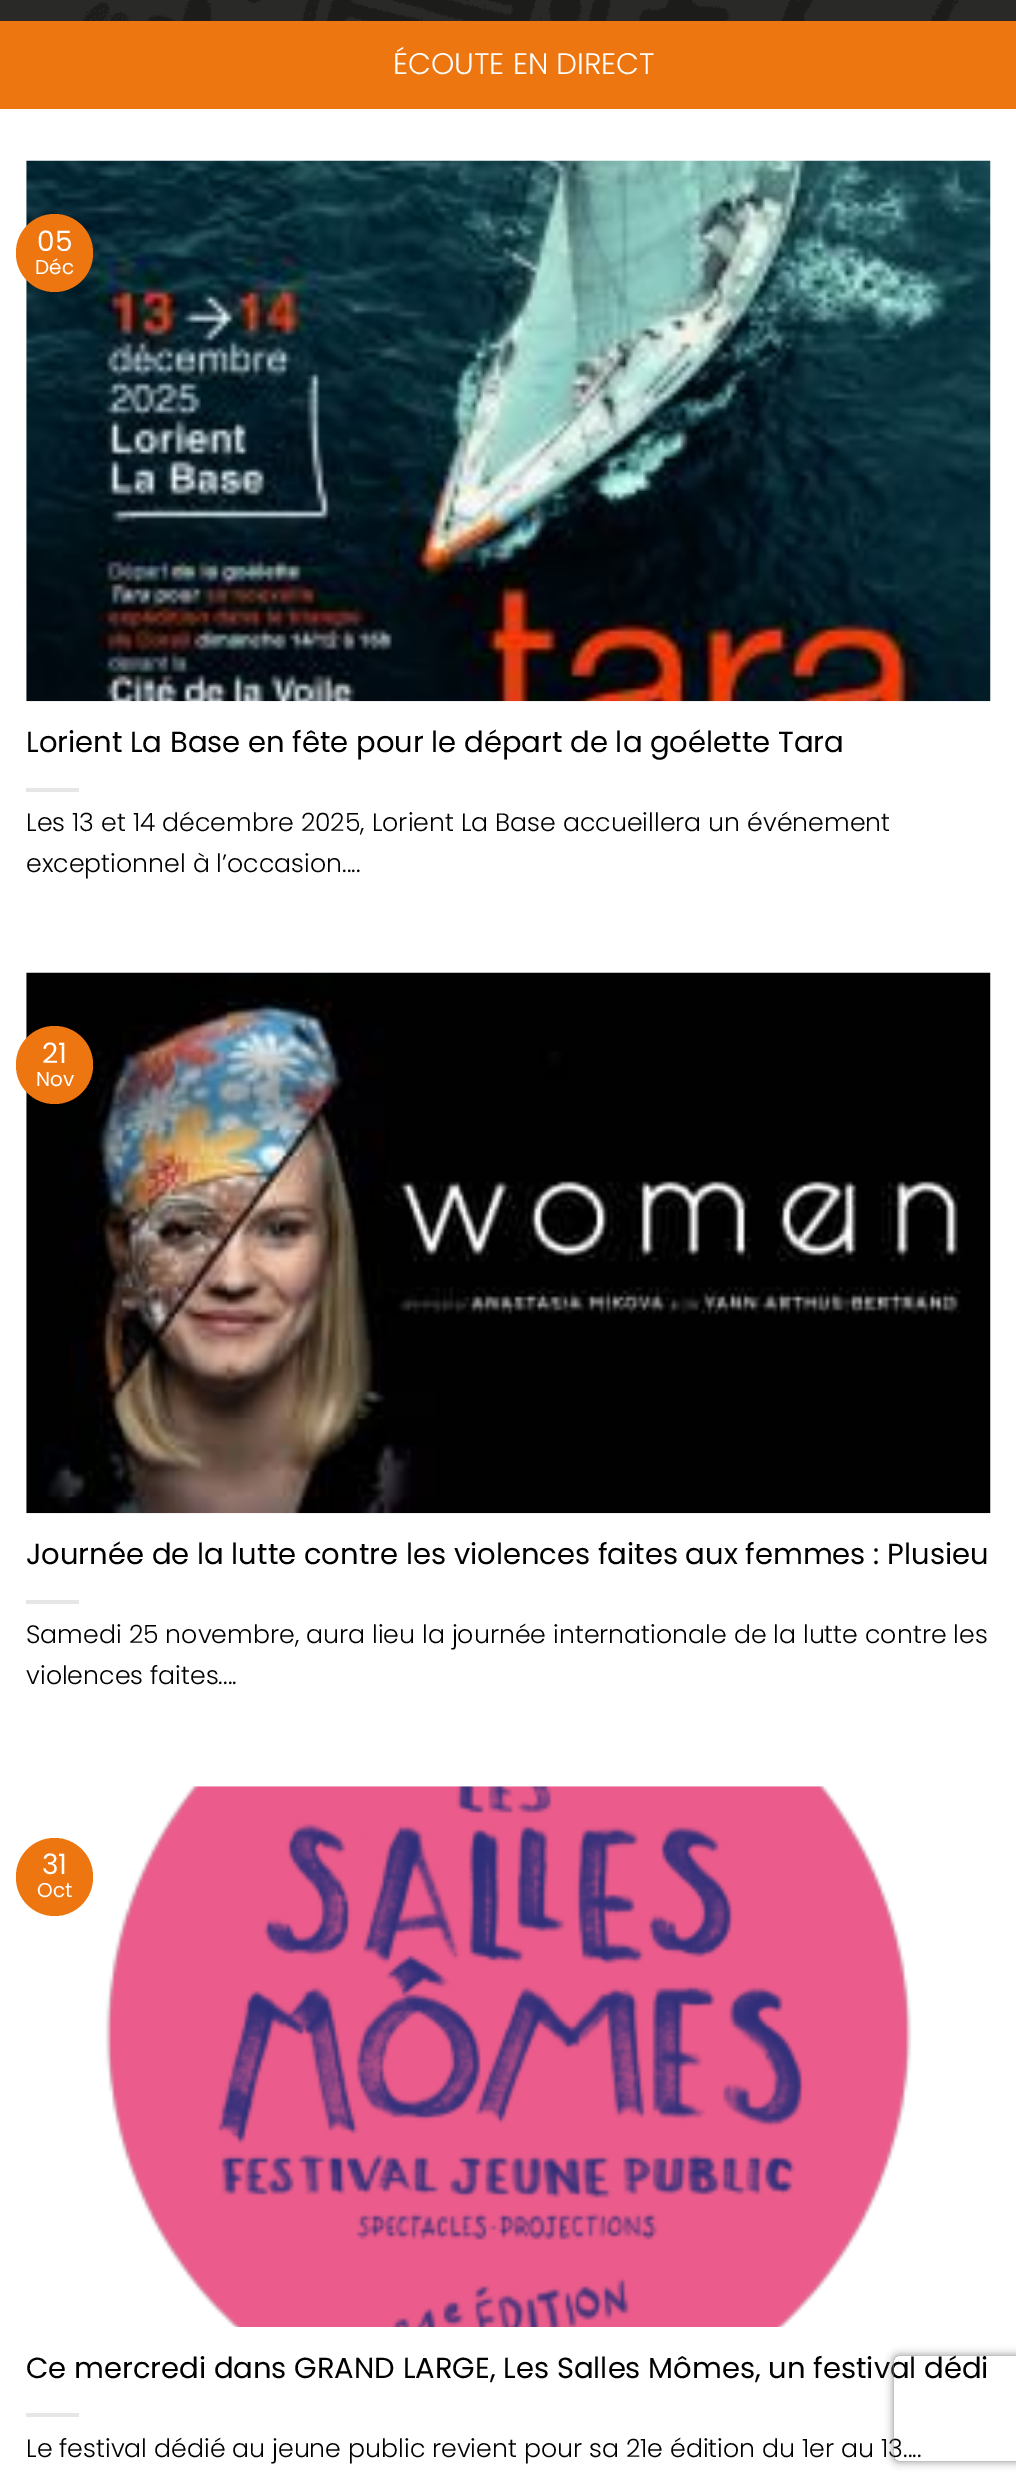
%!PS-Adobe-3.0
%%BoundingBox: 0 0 1016 2485
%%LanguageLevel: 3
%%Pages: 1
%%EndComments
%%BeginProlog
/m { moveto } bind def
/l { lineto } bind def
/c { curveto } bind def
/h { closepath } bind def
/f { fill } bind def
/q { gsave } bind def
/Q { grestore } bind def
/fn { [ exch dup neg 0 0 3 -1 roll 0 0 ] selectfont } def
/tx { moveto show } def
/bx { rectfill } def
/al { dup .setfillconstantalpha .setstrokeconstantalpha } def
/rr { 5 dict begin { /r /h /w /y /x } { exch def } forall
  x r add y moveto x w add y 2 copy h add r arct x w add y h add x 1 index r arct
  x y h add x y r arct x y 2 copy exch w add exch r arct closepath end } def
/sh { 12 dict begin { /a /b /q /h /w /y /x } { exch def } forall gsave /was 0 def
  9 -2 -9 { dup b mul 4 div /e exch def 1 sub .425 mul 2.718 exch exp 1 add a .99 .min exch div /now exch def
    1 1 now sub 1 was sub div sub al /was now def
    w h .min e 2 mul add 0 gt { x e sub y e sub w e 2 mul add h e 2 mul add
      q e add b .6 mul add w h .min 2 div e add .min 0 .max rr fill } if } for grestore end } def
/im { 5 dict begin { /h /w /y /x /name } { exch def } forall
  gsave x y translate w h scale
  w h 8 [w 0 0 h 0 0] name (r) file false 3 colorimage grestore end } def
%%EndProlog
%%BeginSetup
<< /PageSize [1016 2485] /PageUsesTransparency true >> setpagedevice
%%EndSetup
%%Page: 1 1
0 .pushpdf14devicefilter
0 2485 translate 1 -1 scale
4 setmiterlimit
1 setgray
0 0 1016 2485 bx
(image0.raw) 0 0 1016 21 im
0.933 0.463 0.067 setrgbcolor
0 21 1016 88 bx
/Poppins-Light 29.75 fn
1 setgray
(ÉCOUTE EN DIRECT) 393 74 tx
(image1.raw) 26 160 965 542 im
0.933 0.463 0.067 setrgbcolor
16 214 77 78 38.5 rr f
/Poppins-Regular 28 fn
1 setgray
(05) 37 251 tx
/Poppins-Regular 20 fn
(Déc) 35 274 tx
/Poppins-Regular 29 fn
0 setgray
(Lorient La Base en fête pour le départ de la goélette Tara) 26 752 tx
0.902 setgray
26 788 53 4 bx
/Poppins-Light 25.2 fn
0 setgray
(Les 13 et 14 décembre 2025, Lorient La Base accueillera un événement) 26 831 tx
(exceptionnel à l’occasion....) 26 872 tx
(image2.raw) 26 972 965 542 im
0.933 0.463 0.067 setrgbcolor
16 1026 77 78 38.5 rr f
/Poppins-Regular 28 fn
1 setgray
(21) 42 1063 tx
/Poppins-Regular 20 fn
(Nov) 36 1086 tx
/Poppins-Regular 29 fn
0 setgray
(Journée de la lutte contre les violences faites aux femmes : Plusieu) 26 1564 tx
0.902 setgray
26 1600 53 4 bx
/Poppins-Light 25.2 fn
0 setgray
(Samedi 25 novembre, aura lieu la journée internationale de la lutte contre les) 26 1643 tx
(violences faites....) 26 1684 tx
0.933 0.463 0.067 setrgbcolor
16 1838 77 78 38.5 rr f
/Poppins-Regular 28 fn
1 setgray
(31) 42 1874 tx
/Poppins-Regular 20 fn
(Oct) 37 1897 tx
(image3.raw) 105 1786 807 541 im
/Poppins-Regular 29 fn
0 setgray
(Ce mercredi dans GRAND LARGE, Les Salles Mômes, un festival dédi) 26 2378 tx
0.902 setgray
26 2413 53 4 bx
/Poppins-Light 25.2 fn
0 setgray
(Le festival dédié au jeune public revient pour sa 21e édition du 1er au 13....) 26 2457 tx
q
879 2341 m 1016 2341 l 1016 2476 l 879 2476 l h 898 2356 m 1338 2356 l 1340 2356 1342 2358 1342 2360 c 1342 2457 l 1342 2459 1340 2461 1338 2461 c 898 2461 l 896 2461 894 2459 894 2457 c 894 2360 l 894 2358 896 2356 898 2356 c h eoclip newpath
0.502 setgray
894 2356 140 105 4 4.5 1 sh
Q
.poppdf14devicefilter showpage
%%EOF
